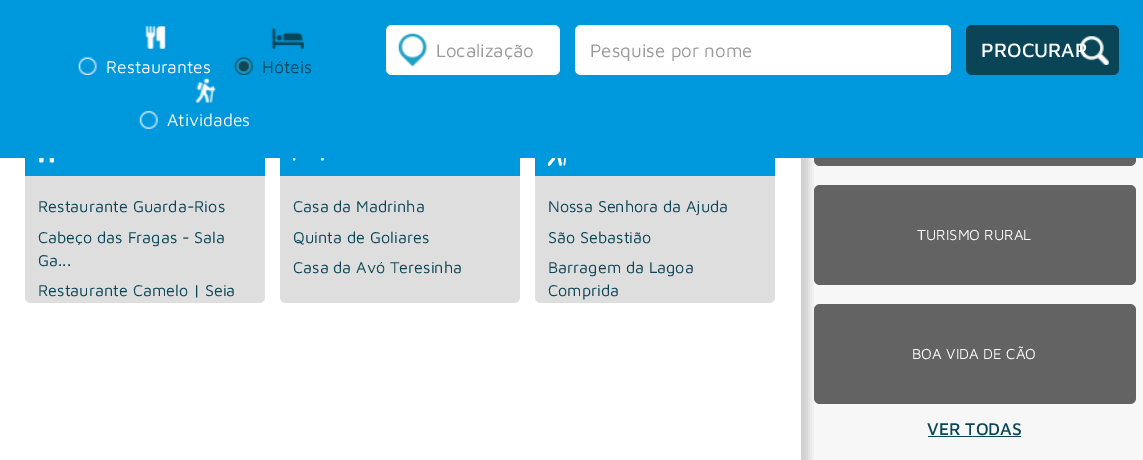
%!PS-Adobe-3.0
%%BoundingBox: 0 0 1143 460
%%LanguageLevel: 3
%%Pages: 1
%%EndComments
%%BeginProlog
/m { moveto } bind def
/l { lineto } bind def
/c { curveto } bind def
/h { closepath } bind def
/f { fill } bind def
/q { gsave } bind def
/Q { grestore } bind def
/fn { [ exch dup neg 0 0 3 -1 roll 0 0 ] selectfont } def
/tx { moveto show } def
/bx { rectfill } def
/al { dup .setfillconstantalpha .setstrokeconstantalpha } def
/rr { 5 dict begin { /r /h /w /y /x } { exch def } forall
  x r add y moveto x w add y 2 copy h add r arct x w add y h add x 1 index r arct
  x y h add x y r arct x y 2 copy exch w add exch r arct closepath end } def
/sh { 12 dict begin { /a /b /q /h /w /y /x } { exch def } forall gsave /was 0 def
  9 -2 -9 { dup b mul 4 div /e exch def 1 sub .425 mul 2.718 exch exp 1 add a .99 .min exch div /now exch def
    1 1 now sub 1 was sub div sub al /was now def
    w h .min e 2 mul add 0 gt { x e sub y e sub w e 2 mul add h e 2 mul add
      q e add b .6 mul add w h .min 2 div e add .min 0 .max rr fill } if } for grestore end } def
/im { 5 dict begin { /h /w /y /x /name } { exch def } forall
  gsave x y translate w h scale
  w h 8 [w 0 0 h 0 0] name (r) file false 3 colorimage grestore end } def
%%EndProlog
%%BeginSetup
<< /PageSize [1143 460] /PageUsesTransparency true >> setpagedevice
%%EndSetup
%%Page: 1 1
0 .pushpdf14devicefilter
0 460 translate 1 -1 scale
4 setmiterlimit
1 setgray
0 0 1143 460 bx
0.969 setgray
801 158 342 302 bx
0.388 setgray
814 66 322 100 6 rr f
814 185 322 100 6 rr f
814 304 322 100 6 rr f
q
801 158 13 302 rectclip
0.161 setgray
8 -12 801 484 0 4 0.2 sh
Q
0.871 setgray
25 128 240 175 6 rr f
280 128 240 175 6 rr f
535 128 240 175 6 rr f
0 0.596 0.867 setrgbcolor
0 0 1143 158 bx
1 setgray
386 25 174 50 6 rr f
(image0.raw) 398 33 29 34 im
0.07 al
0 setgray
392 26 m 554 26 l 557 26 560 29 560 32 c 560 31 l 560 28 557 25 554 25 c 392 25 l 389 25 386 28 386 31 c 386 32 l 386 29 389 26 392 26 c h f
/MavenPro-Regular 18.75 fn
1 al
0.6 setgray
(Localização) 436 57 tx
1 setgray
575 25 376 50 6 rr f
0.07 al
0 setgray
581 26 m 945 26 l 948 26 951 29 951 32 c 951 28 949 25 945 25 c 581 25 l 577 25 575 28 575 32 c 575 29 578 26 581 26 c h f
1 al
0.6 setgray
(Pesquise por nome) 590 57 tx
0.035 0.271 0.337 setrgbcolor
966 25 153 50 6 rr f
/MavenPro-Medium 20 fn
1 setgray
(PROCURAR) 981 57 tx
(image1.raw) 1080 36 29 29 im
(image2.raw) 145 26 21 23 im
(image3.raw) 78 57 19 18 im
/MavenPro-Regular 17.5 fn
(Restaurantes) 106 73 tx
(image4.raw) 271 28 33 21 im
(image5.raw) 234 57 19 18 im
0.035 0.271 0.337 setrgbcolor
(Hóteis) 262 73 tx
(image6.raw) 195 78 21 25 im
(image7.raw) 139 111 19 18 im
1 setgray
(Atividades) 167 126 tx
0 0.596 0.867 setrgbcolor
25 158 240 18 bx
(image8.raw) 39 158 15 5 im
/MavenPro-Regular 16.25 fn
0.035 0.271 0.337 setrgbcolor
(Restaurante Guarda-Rios) 38 212 tx
(Cabeço das Fragas - Sala) 38 243 tx
(Ga...) 38 266 tx
(Restaurante Camelo | Seia) 38 296 tx
0 0.596 0.867 setrgbcolor
280 158 240 18 bx
(image9.raw) 293 158 31 3 im
0.035 0.271 0.337 setrgbcolor
(Casa da Madrinha) 293 212 tx
(Quinta de Goliares) 293 243 tx
(Casa da Avó Teresinha) 293 273 tx
0 0.596 0.867 setrgbcolor
535 158 240 18 bx
(image10.raw) 548 158 19 8 im
0.035 0.271 0.337 setrgbcolor
(Nossa Senhora da Ajuda) 548 212 tx
(São Sebastião) 548 243 tx
(Barragem da Lagoa) 548 273 tx
(Comprida) 548 296 tx
/MavenPro-Regular 15 fn
1 setgray
(TURISMO RURAL) 917 240 tx
(BOA VIDA DE CÃO) 912 359 tx
/MavenPro-Medium 17.5 fn
0.035 0.271 0.337 setrgbcolor
(VER TODAS) 927 435 tx
928 436 93 1 bx
.poppdf14devicefilter showpage
%%EOF
